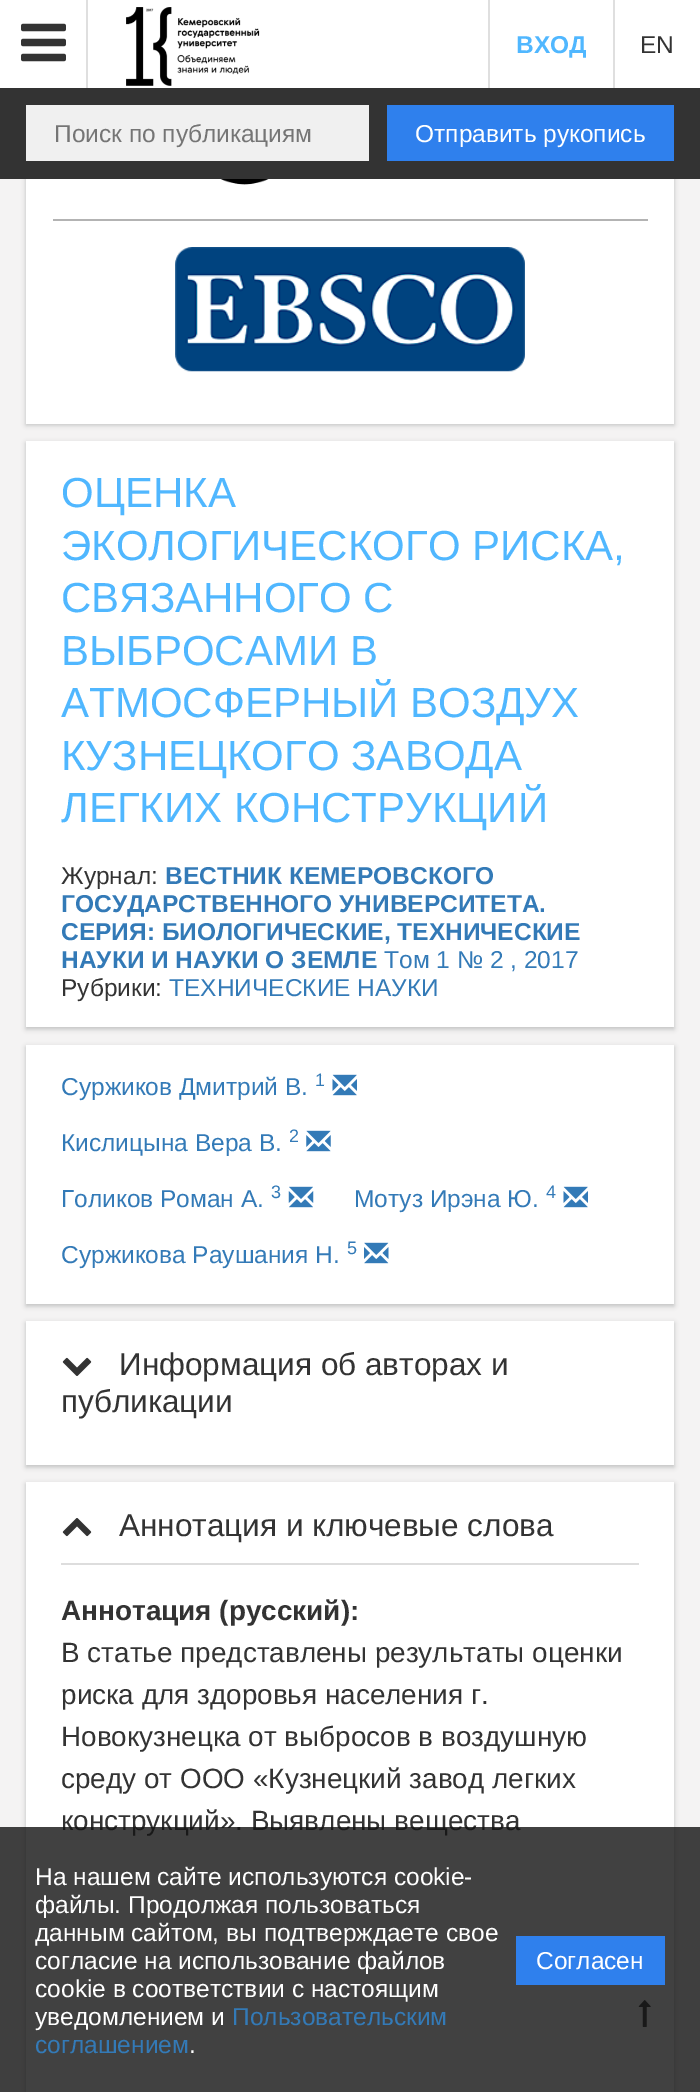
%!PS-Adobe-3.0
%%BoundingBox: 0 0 700 2092
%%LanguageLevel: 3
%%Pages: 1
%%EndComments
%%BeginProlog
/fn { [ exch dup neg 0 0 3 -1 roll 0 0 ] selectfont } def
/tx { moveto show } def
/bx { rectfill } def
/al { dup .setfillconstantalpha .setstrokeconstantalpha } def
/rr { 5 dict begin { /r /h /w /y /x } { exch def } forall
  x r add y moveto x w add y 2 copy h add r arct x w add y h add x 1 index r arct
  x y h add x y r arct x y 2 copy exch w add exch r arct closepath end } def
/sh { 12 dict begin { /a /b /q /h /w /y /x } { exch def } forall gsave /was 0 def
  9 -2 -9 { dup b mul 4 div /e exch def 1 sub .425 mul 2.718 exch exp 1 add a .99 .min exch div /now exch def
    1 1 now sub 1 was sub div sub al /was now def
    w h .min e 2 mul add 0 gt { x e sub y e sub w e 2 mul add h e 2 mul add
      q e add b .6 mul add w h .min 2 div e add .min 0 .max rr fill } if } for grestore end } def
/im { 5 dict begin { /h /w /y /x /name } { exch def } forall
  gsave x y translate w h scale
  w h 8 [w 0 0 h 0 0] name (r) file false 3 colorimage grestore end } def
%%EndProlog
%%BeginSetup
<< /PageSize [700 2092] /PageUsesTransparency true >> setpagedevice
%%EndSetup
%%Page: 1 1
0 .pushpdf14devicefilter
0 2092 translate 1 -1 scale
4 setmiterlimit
0.957 0.953 0.953 setrgbcolor
0 0 700 2092 bx
0.749 setgray
26 -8 648 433 0 2.5 1 sh
1 setgray
0 0 700 88 bx
0.875 setgray
86 0 2 88 bx
(image0.raw) 21 23 45 39 im
(image1.raw) 126 7 134 79 im
488 0 2 88 bx
/LiberationSans-Bold 24.5 fn
0.314 0.718 1 setrgbcolor
(ВХОД) 516 53 tx
0.875 setgray
613 0 2 88 bx
/LiberationSans-Regular 24.5 fn
0.2 setgray
(EN) 640 53 tx
0 88 700 91 bx
0.941 setgray
26 105 343 56 bx
0.459 setgray
(Поиск по публикациям) 54 142 tx
0.184 0.502 0.929 setrgbcolor
387 105 287 56 bx
1 setgray
(Отправить рукопись) 415 142 tx
26 179 648 245 bx
0.702 setgray
53 219 595 2 bx
(image2.raw) 220 179 49 6 im
(image3.raw) 175 247 350 125 im
0.749 setgray
26 443 648 586 0 2.5 1 sh
1 setgray
26 441 648 586 bx
/LiberationSans-Regular 42 fn
0.314 0.718 1 setrgbcolor
(ОЦЕНКА) 61 507 tx
(ЭКОЛОГИЧЕСКОГО РИСКА,) 61 560 tx
(СВЯЗАННОГО С) 61 612 tx
(ВЫБРОСАМИ В) 61 665 tx
(АТМОСФЕРНЫЙ ВОЗДУХ) 61 717 tx
(КУЗНЕЦКОГО ЗАВОДА) 61 770 tx
(ЛЕГКИХ КОНСТРУКЦИЙ) 61 822 tx
/LiberationSans-Regular 24.5 fn
0.2 setgray
(Журнал:) 61 884 tx
/LiberationSans-Bold 24.5 fn
0.2 0.478 0.718 setrgbcolor
(ВЕСТНИК КЕМЕРОВСКОГО) 165 884 tx
(ГОСУДАРСТВЕННОГО УНИВЕРСИТЕТА.) 61 912 tx
(СЕРИЯ: БИОЛОГИЧЕСКИЕ, ТЕХНИЧЕСКИЕ) 61 940 tx
(НАУКИ И НАУКИ О ЗЕМЛЕ) 61 968 tx
/LiberationSans-Regular 24.5 fn
(Том 1 № 2 , 2017) 384 968 tx
0.2 setgray
(Рубрики:) 61 996 tx
0.2 0.478 0.718 setrgbcolor
(ТЕХНИЧЕСКИЕ НАУКИ) 169 996 tx
0.749 setgray
26 1047 648 259 0 2.5 1 sh
1 setgray
26 1045 648 259 bx
0.2 0.478 0.718 setrgbcolor
(Суржиков Дмитрий В.) 61 1095 tx
/LiberationSans-Regular 18 fn
(1) 315 1086 tx
(image4.raw) 332 1074 25 22 im
/LiberationSans-Regular 24.5 fn
(Кислицына Вера В.) 61 1151 tx
/LiberationSans-Regular 18 fn
(2) 289 1142 tx
(image5.raw) 306 1130 25 22 im
/LiberationSans-Regular 24.5 fn
(Голиков Роман А.) 61 1207 tx
/LiberationSans-Regular 18 fn
(3) 271 1198 tx
(image6.raw) 288 1186 26 22 im
/LiberationSans-Regular 24.5 fn
(Мотуз Ирэна Ю.) 354 1207 tx
/LiberationSans-Regular 18 fn
(4) 546 1198 tx
(image4.raw) 563 1186 25 22 im
/LiberationSans-Regular 24.5 fn
(Суржикова Раушания Н.) 61 1263 tx
/LiberationSans-Regular 18 fn
(5) 347 1254 tx
(image7.raw) 364 1242 25 22 im
0.749 setgray
26 1323 648 144 0 2.5 1 sh
1 setgray
26 1321 648 144 bx
(image8.raw) 62 1357 30 19 im
/LiberationSans-Regular 31.5 fn
0.2 setgray
(Информация об авторах и) 119 1375 tx
(публикации) 61 1412 tx
0.749 setgray
26 1484 648 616 0 2.5 1 sh
1 setgray
26 1482 648 610 bx
(image9.raw) 62 1518 30 19 im
0.2 setgray
(Аннотация и ключевые слова) 119 1536 tx
0.867 setgray
61 1563 578 2 bx
/LiberationSans-Bold 27.9 fn
0.2 setgray
(Аннотация \(русский\):) 61 1620 tx
/LiberationSans-Regular 27.9 fn
(В статье представлены результаты оценки) 61 1662 tx
(риска для здоровья населения г.) 61 1704 tx
(Новокузнецка от выбросов в воздушную) 61 1746 tx
(среду от ООО «Кузнецкий завод легких) 61 1788 tx
(конструкций». Выявлены вещества) 61 1830 tx
(image10.raw) 638 2000 13 27 im
0.8 al
0.071 setgray
0 1827 700 265 bx
/LiberationSans-Regular 24.5 fn
1 al
1 setgray
(На нашем сайте используются cookie-) 35 1885 tx
(файлы. Продолжая пользоваться) 35 1913 tx
(данным сайтом, вы подтверждаете свое) 35 1941 tx
(согласие на использование файлов) 35 1969 tx
(cookie в соответствии с настоящим) 35 1997 tx
(уведомлением и) 35 2025 tx
0.2 0.478 0.718 setrgbcolor
(Пользовательским) 232 2025 tx
(соглашением) 35 2053 tx
1 setgray
(.) 189 2053 tx
0.184 0.502 0.929 setrgbcolor
516 1936 149 49 bx
1 setgray
(Согласен) 536 1969 tx
.poppdf14devicefilter showpage
%%EOF
